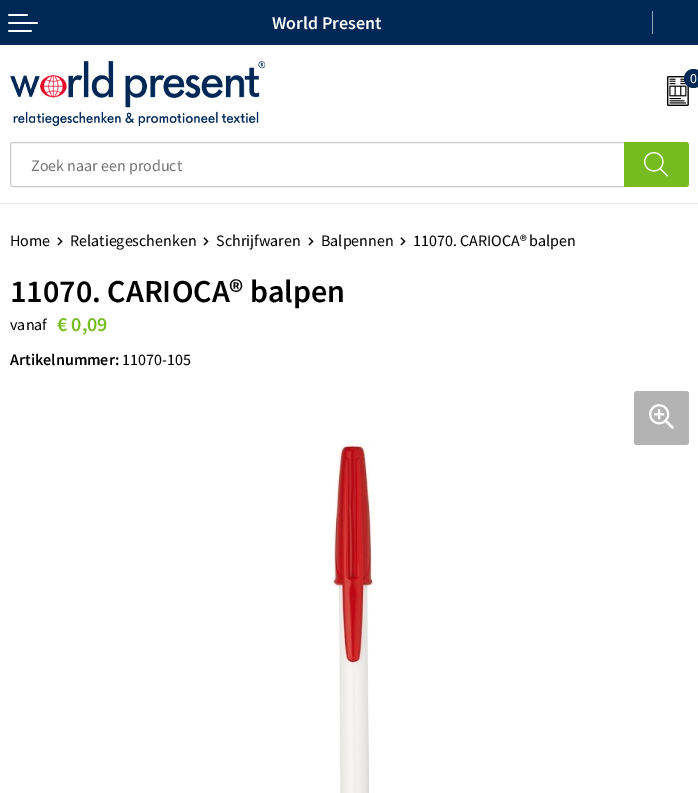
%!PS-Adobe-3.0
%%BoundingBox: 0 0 698 793
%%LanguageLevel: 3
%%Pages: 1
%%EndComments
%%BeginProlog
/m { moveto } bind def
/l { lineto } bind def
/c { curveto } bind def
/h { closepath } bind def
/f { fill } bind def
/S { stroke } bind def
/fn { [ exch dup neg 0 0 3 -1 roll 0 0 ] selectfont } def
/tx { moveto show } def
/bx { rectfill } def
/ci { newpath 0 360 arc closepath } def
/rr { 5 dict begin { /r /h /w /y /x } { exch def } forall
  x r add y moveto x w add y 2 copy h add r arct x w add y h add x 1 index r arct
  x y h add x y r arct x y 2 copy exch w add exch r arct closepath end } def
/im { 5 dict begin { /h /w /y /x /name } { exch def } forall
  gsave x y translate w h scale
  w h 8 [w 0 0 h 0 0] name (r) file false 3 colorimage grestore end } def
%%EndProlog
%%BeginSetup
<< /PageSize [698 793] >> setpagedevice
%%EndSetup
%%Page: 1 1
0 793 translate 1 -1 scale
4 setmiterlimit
1 setgray
0 0 698 793 bx
0 0.157 0.337 setrgbcolor
0 0 698 45 bx
(image0.raw) 8 14 30 18 im
/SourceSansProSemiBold-SemiBold 18 fn
1 setgray
(World Present) 272 29 tx
0.6 0.663 0.733 setrgbcolor
652 11 1 23 bx
(image1.raw) 10 61 255 65 im
(image2.raw) 667 76 22 30 im
0 0.157 0.337 setrgbcolor
693.5 78.5 9.5 ci f
/SourceSansPro-Regular 14 fn
1 setgray
(0) 690 83 tx
0.8 setgray
13 142.5 m 624.5 142.5 l 624.5 186.5 l 13 186.5 l 11.5 186.5 10.5 185.5 10.5 184 c 10.5 145 l 10.5 143.5 11.5 142.5 13 142.5 c h S
/SourceSansPro-Regular 16 fn
0.459 setgray
(Zoek naar een product) 31 171 tx
0.463 0.737 0.129 setrgbcolor
624 142 m 686 142 l 687.5 142 689 143.5 689 145 c 689 184 l 689 185.5 687.5 187 686 187 c 624 187 l h f
(image3.raw) 644 152 24 25 im
0.918 setgray
0 203 698 1 bx
0 setgray
(Home) 10 246 tx
(image4.raw) 57 237 6 9 im
(Relatiegeschenken) 70 246 tx
(image4.raw) 203 237 6 9 im
(Schrijfwaren) 216 246 tx
(image4.raw) 308 237 6 9 im
(Balpennen) 321 246 tx
(image4.raw) 400 237 6 9 im
(11070. CARIOCA® balpen) 413 246 tx
/SourceSansProSemiBold-SemiBold 32 fn
(11070. CARIOCA® balpen) 10 302 tx
/SourceSansPro-Regular 16 fn
(vanaf) 10 330 tx
/SourceSansProSemiBold-SemiBold 20 fn
0.463 0.737 0.129 setrgbcolor
(€ 0,09) 57 331 tx
/SourceSansProSemiBold-SemiBold 16 fn
0 setgray
(Artikelnummer:) 10 365 tx
/SourceSansPro-Regular 16 fn
(11070-105) 122 365 tx
0.702 setgray
634 391 55 54 3 rr f
(image5.raw) 649 404 25 25 im
(image6.raw) 330 439 45 354 im
showpage
%%EOF
